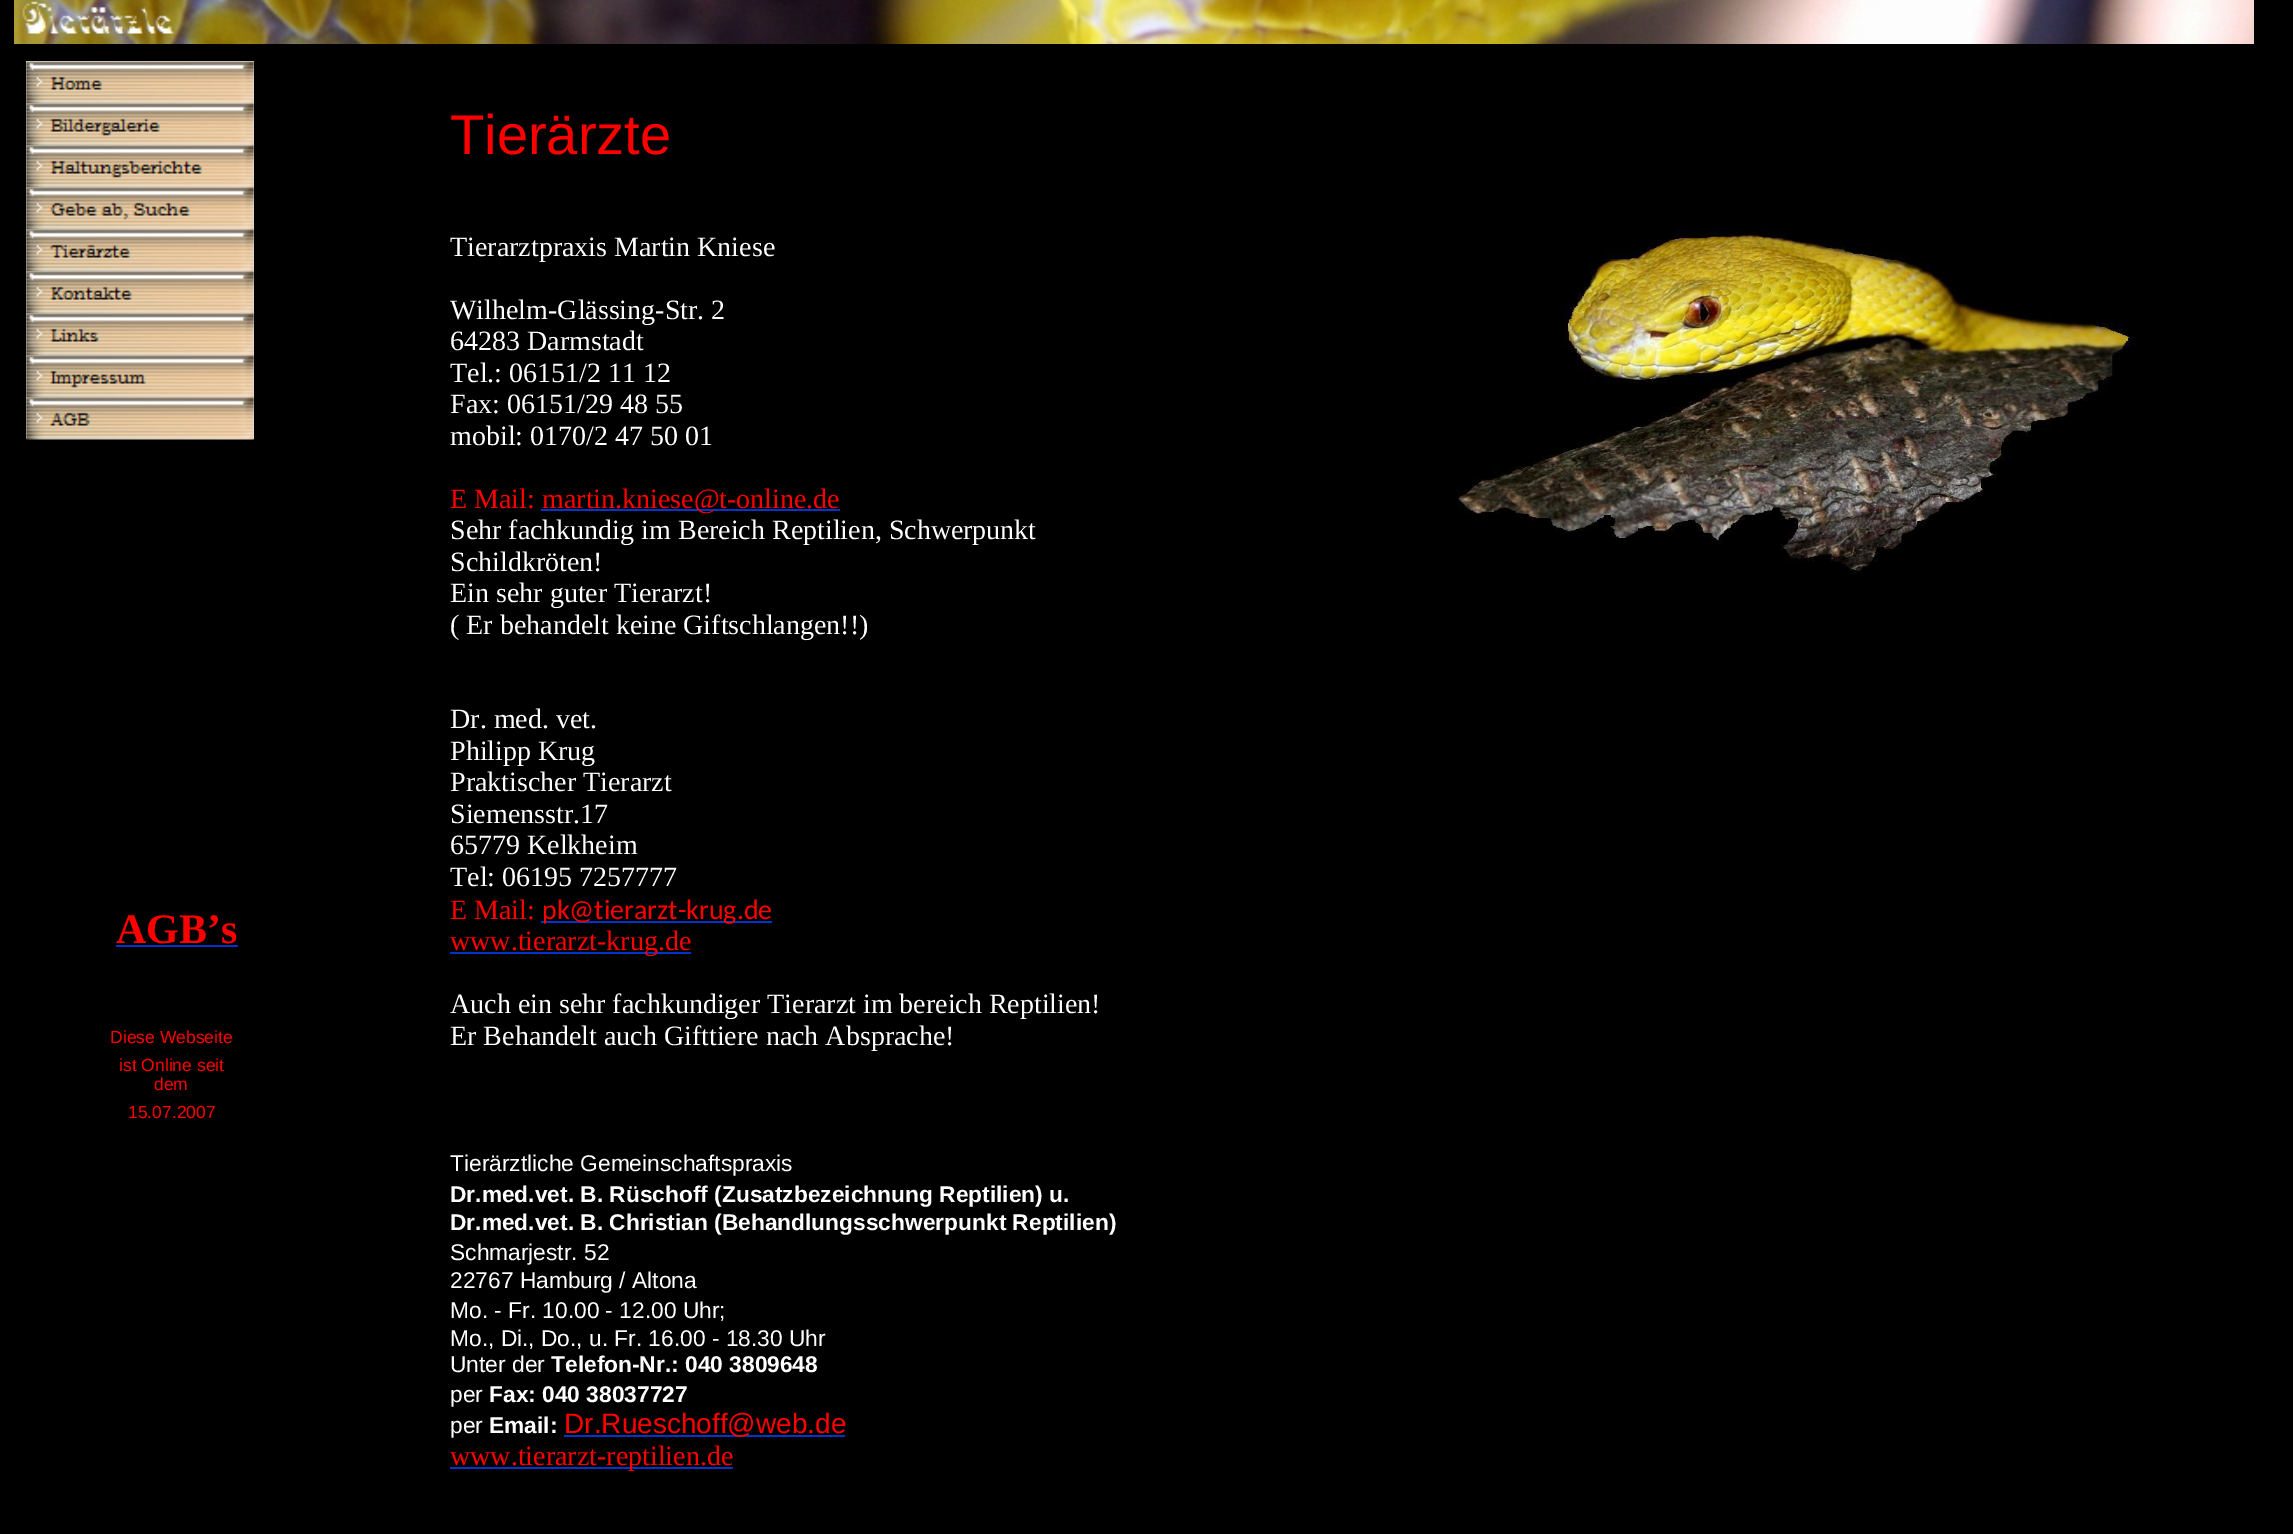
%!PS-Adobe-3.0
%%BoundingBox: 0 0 2293 1534
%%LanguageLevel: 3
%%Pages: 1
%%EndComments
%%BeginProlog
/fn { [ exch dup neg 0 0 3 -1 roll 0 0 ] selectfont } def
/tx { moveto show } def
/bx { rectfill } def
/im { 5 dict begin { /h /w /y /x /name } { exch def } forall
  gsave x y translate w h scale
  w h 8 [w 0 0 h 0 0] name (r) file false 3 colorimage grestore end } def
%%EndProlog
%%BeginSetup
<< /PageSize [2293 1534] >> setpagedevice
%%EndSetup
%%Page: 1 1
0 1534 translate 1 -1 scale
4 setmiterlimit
0 setgray
0 0 2293 1534 bx
(image0.raw) 14 0 2240 44 im
/LiberationSans-Regular 56 fn
1 0 0 setrgbcolor
(Tierärzte) 450 154 tx
/LiberationSerif-Regular 28 fn
1 setgray
(Tierarztpraxis Martin Kniese) 450 256 tx
(Wilhelm-Glässing-Str. 2) 450 319 tx
(64283 Darmstadt) 450 350 tx
(Tel.: 06151/2 11 12) 450 382 tx
(Fax: 06151/29 48 55) 450 413 tx
(mobil: 0170/2 47 50 01) 450 445 tx
1 0 0 setrgbcolor
(E Mail:) 450 508 tx
0 0.2 0.8 setrgbcolor
541 509 299 2 bx
1 0 0 setrgbcolor
(martin.kniese@t-online.de) 542 508 tx
1 setgray
(Sehr fachkundig im Bereich Reptilien, Schwerpunkt) 450 539 tx
(Schildkröten!) 450 571 tx
(Ein sehr guter Tierarzt!) 450 602 tx
(\( Er behandelt keine Giftschlangen!!\)) 450 634 tx
(Dr. med. vet.) 450 728 tx
(Philipp Krug) 450 760 tx
(Praktischer Tierarzt) 450 791 tx
(Siemensstr.17) 450 823 tx
(65779 Kelkheim) 450 854 tx
(Tel: 06195 7257777) 450 886 tx
1 0 0 setrgbcolor
(E Mail:) 450 919 tx
0 0.2 0.8 setrgbcolor
541 921 231 2 bx
/Carlito-Regular 28 fn
1 0 0 setrgbcolor
(pk@tierarzt-krug.de) 542 919 tx
0 0.2 0.8 setrgbcolor
450 952 241 2 bx
/LiberationSerif-Regular 28 fn
1 0 0 setrgbcolor
(www.tierarzt-krug.de) 450 950 tx
1 setgray
(Auch ein sehr fachkundiger Tierarzt im bereich Reptilien!) 450 1013 tx
(Er Behandelt auch Gifttiere nach Absprache!) 450 1045 tx
/LiberationSans-Regular 22.75 fn
(Tierärztliche Gemeinschaftspraxis) 450 1171 tx
/LiberationSans-Bold 22.75 fn
(Dr.med.vet. B. Rüschoff \(Zusatzbezeichnung Reptilien\) u.) 450 1202 tx
(Dr.med.vet. B. Christian \(Behandlungsschwerpunkt Reptilien\)) 450 1230 tx
/LiberationSans-Regular 22.75 fn
(Schmarjestr. 52) 450 1260 tx
(22767 Hamburg / Altona) 450 1288 tx
(Mo. - Fr. 10.00 - 12.00 Uhr;) 450 1318 tx
(Mo., Di., Do., u. Fr. 16.00 - 18.30 Uhr) 450 1346 tx
(Unter der) 450 1372 tx
/LiberationSans-Bold 22.75 fn
(Telefon-Nr.: 040 3809648) 551 1372 tx
/LiberationSans-Regular 22.75 fn
(per) 450 1402 tx
/LiberationSans-Bold 22.75 fn
(Fax: 040 38037727) 489 1402 tx
/LiberationSans-Regular 22.75 fn
(per) 450 1433 tx
/LiberationSans-Bold 22.75 fn
(Email:) 489 1433 tx
0 0.2 0.8 setrgbcolor
564 1435 281 2 bx
/LiberationSans-Regular 28 fn
1 0 0 setrgbcolor
(Dr.Rueschoff@web.de) 564 1433 tx
0 0.2 0.8 setrgbcolor
450 1467 283 2 bx
/LiberationSerif-Regular 28 fn
1 0 0 setrgbcolor
(www.tierarzt-reptilien.de) 450 1465 tx
(image1.raw) 1458 228 679 346 im
1 setgray
26 61 228 378 bx
(image2.raw) 26 61 228 43 im
(image3.raw) 26 103 228 43 im
(image4.raw) 26 145 228 43 im
(image5.raw) 26 187 228 43 im
(image6.raw) 26 229 228 43 im
(image7.raw) 26 271 228 43 im
(image8.raw) 26 313 228 43 im
(image9.raw) 26 355 228 43 im
(image10.raw) 26 397 228 43 im
/LiberationSerif-Bold 42 fn
1 0 0 setrgbcolor
(AGB’s) 116 943 tx
0 0.2 0.8 setrgbcolor
116 945 122 2 bx
/LiberationSans-Regular 17.5 fn
1 0 0 setrgbcolor
(Diese Webseite) 110 1043 tx
(ist Online seit) 119 1071 tx
(dem) 154 1090 tx
(15.07.2007) 128 1118 tx
showpage
%%EOF
